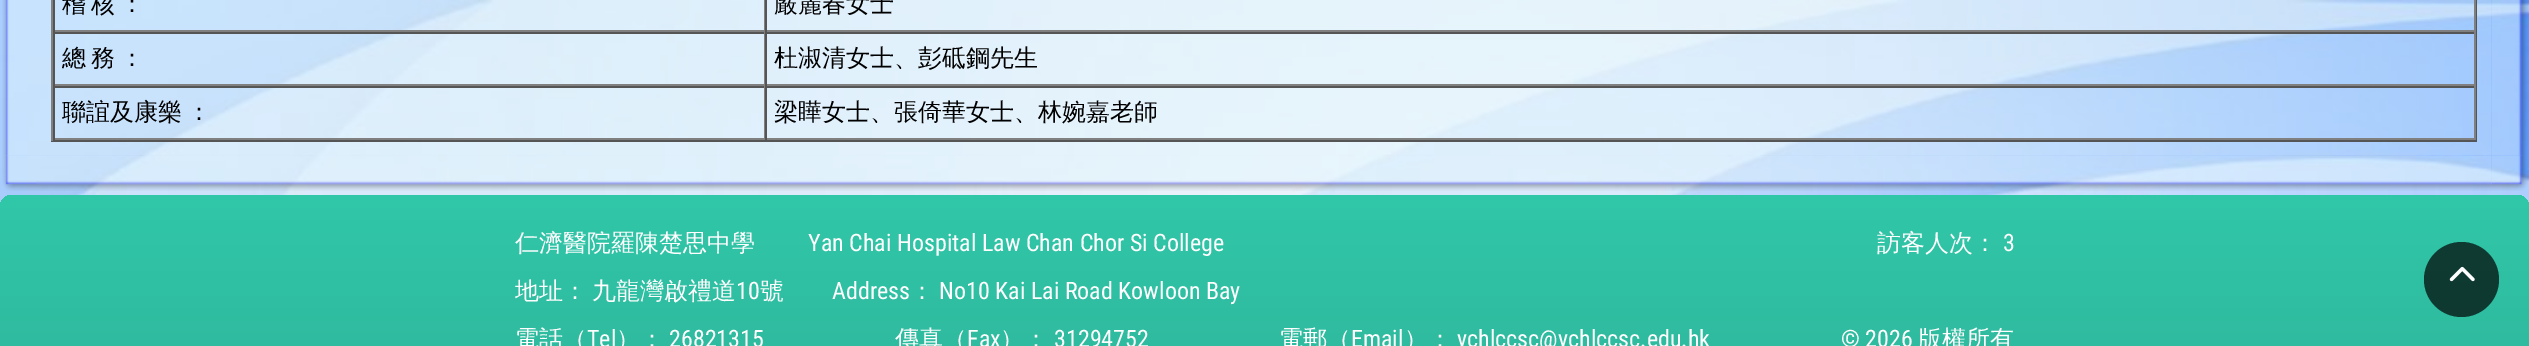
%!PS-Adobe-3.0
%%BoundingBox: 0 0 2529 346
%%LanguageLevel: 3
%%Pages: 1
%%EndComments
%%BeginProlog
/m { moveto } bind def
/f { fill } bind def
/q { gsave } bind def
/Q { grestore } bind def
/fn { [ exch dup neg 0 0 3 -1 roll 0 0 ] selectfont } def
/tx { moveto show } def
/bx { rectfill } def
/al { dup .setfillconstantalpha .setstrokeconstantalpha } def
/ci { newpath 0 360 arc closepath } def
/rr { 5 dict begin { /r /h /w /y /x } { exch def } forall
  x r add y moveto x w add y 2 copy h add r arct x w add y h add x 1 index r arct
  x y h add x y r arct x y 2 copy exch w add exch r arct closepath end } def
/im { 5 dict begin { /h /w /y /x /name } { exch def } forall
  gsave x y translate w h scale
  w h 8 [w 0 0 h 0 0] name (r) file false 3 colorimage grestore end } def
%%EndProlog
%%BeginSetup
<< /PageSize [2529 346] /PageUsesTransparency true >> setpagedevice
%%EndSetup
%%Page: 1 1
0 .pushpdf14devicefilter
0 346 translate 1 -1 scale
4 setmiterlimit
1 setgray
0 0 2529 346 bx
(image0.raw) 0 0 2529 207 im
(image1.raw) 2 0 2526 191 im
0.333 setgray
2476 0 1 141 bx
51 140 2426 2 bx
0.502 setgray
51 0 2 141 bx
764 0 1 32 bx
53 30 712 2 bx
0.333 setgray
53 0 2 32 bx
/WenQuanYiZenHei-Medium 24 fn
0 setgray
62 12 m -2 0 32 (稽 核 ：) widthshow
0.502 setgray
2474 0 2 32 bx
765 30 1710 2 bx
0.333 setgray
765 0 2 32 bx
0 setgray
(嚴麗春女士) 774 12 tx
0.333 setgray
53 32 2422 2 bx
0.502 setgray
764 32 1 54 bx
53 84 712 2 bx
0.333 setgray
53 32 2 54 bx
0 setgray
62 66 m -2 0 32 (總 務 ：) widthshow
0.502 setgray
2474 32 2 54 bx
765 84 1710 2 bx
0.333 setgray
765 32 2 54 bx
0 setgray
(杜淑清女士、彭砥鋼先生) 774 66 tx
0.333 setgray
53 86 2422 2 bx
0.502 setgray
764 86 1 54 bx
53 138 712 2 bx
0.333 setgray
53 86 2 54 bx
0 setgray
62 120 m -2 0 32 (聯誼及康樂 ：) widthshow
0.502 setgray
2474 86 2 54 bx
765 138 1710 2 bx
0.333 setgray
765 86 2 54 bx
0 setgray
(梁瞱女士、張倚華女士、林婉嘉老師) 774 120 tx
q 0 195 2529 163 12 rr clip newpath
<< /ShadingType 2 /ColorSpace /DeviceRGB /Coords [1265 195 1265 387] /Extend [true true] /Function << /FunctionType 2 /Domain [0 1] /C0 [0.192 0.78 0.663] /C1 [0.18 0.722 0.612] /N 1 >> >> shfill Q
1 setgray
(仁濟醫院羅陳楚思中學) 515 251 tx
/RobotoCondensed-Regular 24 fn
(Yan Chai Hospital Law Chan Chor Si College) 808 251 tx
/WenQuanYiZenHei-Medium 24 fn
(訪客人次：) 1877 251 tx
/RobotoCondensed-Regular 24 fn
(3) 2003 251 tx
/WenQuanYiZenHei-Medium 24 fn
(地址：) 515 299 tx
(九龍灣啟禮道) 592 299 tx
/RobotoCondensed-Regular 24 fn
(10) 736 299 tx
/WenQuanYiZenHei-Medium 24 fn
(號) 760 299 tx
/RobotoCondensed-Regular 24 fn
(Address) 832 299 tx
/WenQuanYiZenHei-Medium 24 fn
(：) 910 299 tx
/RobotoCondensed-Regular 24 fn
(No10 Kai Lai Road Kowloon Bay) 939 299 tx
/WenQuanYiZenHei-Medium 24 fn
(電話（) 515 347 tx
/RobotoCondensed-Regular 24 fn
(Tel) 587 347 tx
/WenQuanYiZenHei-Medium 24 fn
(）：) 616 347 tx
/RobotoCondensed-Regular 24 fn
(26821315) 669 347 tx
/WenQuanYiZenHei-Medium 24 fn
(傳真（) 895 347 tx
/RobotoCondensed-Regular 24 fn
(Fax) 967 347 tx
/WenQuanYiZenHei-Medium 24 fn
(）：) 1000 347 tx
/RobotoCondensed-Regular 24 fn
(31294752) 1054 347 tx
/WenQuanYiZenHei-Medium 24 fn
(電郵（) 1279 347 tx
/RobotoCondensed-Regular 24 fn
(Email) 1351 347 tx
/WenQuanYiZenHei-Medium 24 fn
(）：) 1404 347 tx
/RobotoCondensed-Regular 24 fn
(ychlccsc@ychlccsc.edu.hk) 1457 347 tx
(© 2026) 1841 347 tx
/WenQuanYiZenHei-Medium 24 fn
(版權所有) 1918 347 tx
0.7 al
0 setgray
2461.5 279.5 37.5 ci f
1 al
(image2.raw) 2449 266 26 16 im
.poppdf14devicefilter showpage
%%EOF
